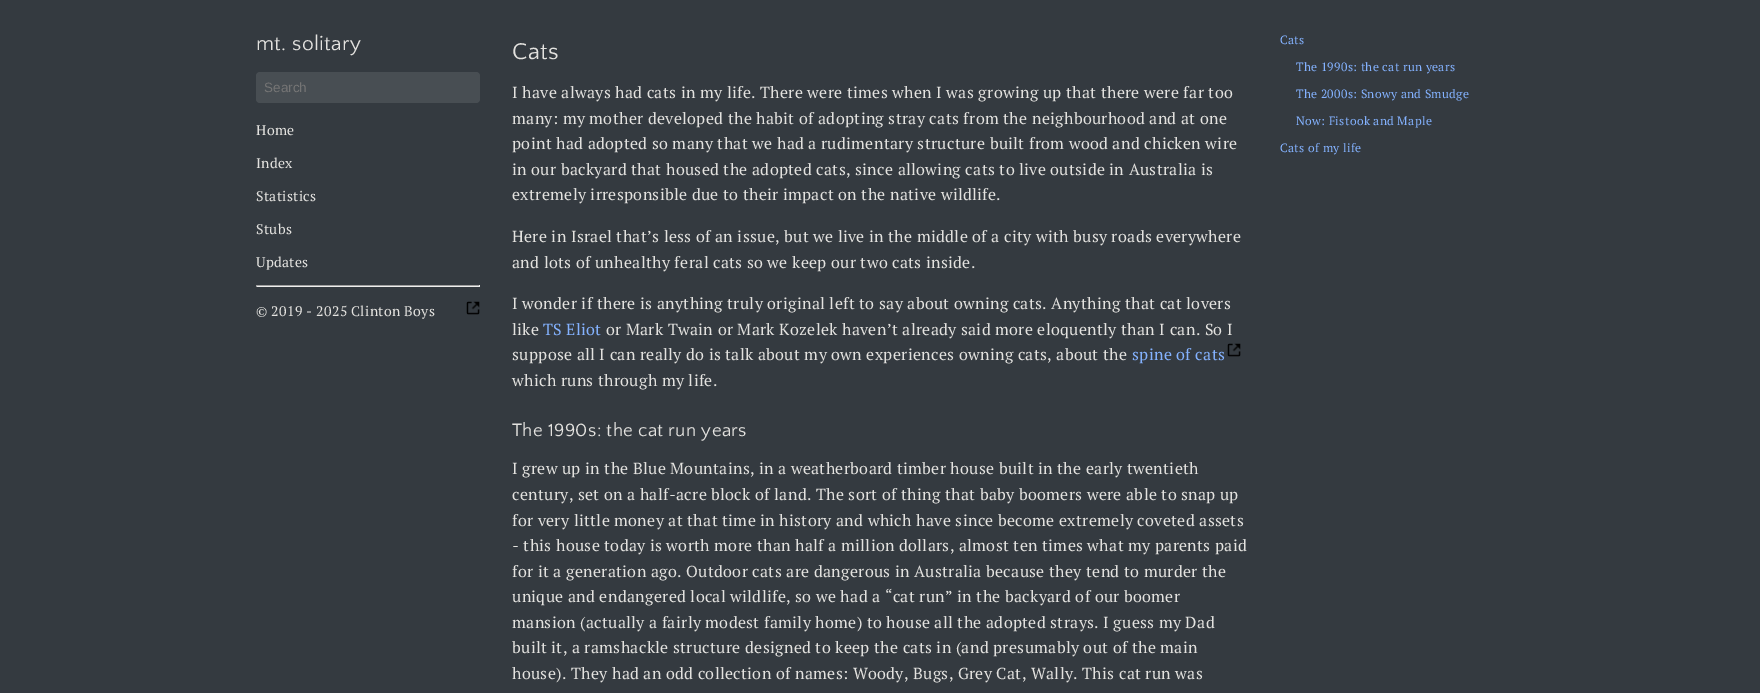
%!PS-Adobe-3.0
%%BoundingBox: 0 0 1760 693
%%LanguageLevel: 3
%%Pages: 1
%%EndComments
%%BeginProlog
/m { moveto } bind def
/f { fill } bind def
/fn { [ exch dup neg 0 0 3 -1 roll 0 0 ] selectfont } def
/tx { moveto show } def
/bx { rectfill } def
/rr { 5 dict begin { /r /h /w /y /x } { exch def } forall
  x r add y moveto x w add y 2 copy h add r arct x w add y h add x 1 index r arct
  x y h add x y r arct x y 2 copy exch w add exch r arct closepath end } def
/im { 5 dict begin { /h /w /y /x /name } { exch def } forall
  gsave x y translate w h scale
  w h 8 [w 0 0 h 0 0] name (r) file false 3 colorimage grestore end } def
%%EndProlog
%%BeginSetup
<< /PageSize [1760 693] >> setpagedevice
%%EndSetup
%%Page: 1 1
0 693 translate 1 -1 scale
4 setmiterlimit
0.204 0.227 0.251 setrgbcolor
0 0 1760 693 bx
/QuattrocentoSans-Regular 21 fn
0.89 0.886 0.875 setrgbcolor
256 50 m 0.33 0 (mt. solitary) ashow
0.282 0.306 0.325 setrgbcolor
256 72 224 31 4 rr f
/LiberationSans-Regular 13.5 fn
0.459 setgray
(Search) 264 92 tx
/PTSerif-Regular 14 fn
0.89 0.886 0.875 setrgbcolor
256 135 m 0.33 0 (Home) ashow
256 168 m 0.33 0 (Index) ashow
256 201 m 0.33 0 (Statistics) ashow
256 234 m 0.33 0 (Stubs) ashow
256 267 m 0.33 0 (Updates) ashow
0.624 setgray
256 285 224 1 bx
0.933 setgray
479 285 1 2 bx
256 286 224 1 bx
0.624 setgray
256 285 1 2 bx
(image0.raw) 466 301 14 14 im
0.89 0.886 0.875 setrgbcolor
256 316 m 0.33 0 (© 2019 - 2025 Clinton Boys) ashow
/QuattrocentoSans-Regular 24 fn
512 59 m 0.33 0 (Cats) ashow
/PTSerif-Regular 16 fn
512 98 m 0.33 0 (I have always had cats in my life. There were times when I was growing up that there were far too) ashow
512 124 m 0.33 0 (many: my mother developed the habit of adopting stray cats from the neighbourhood and at one) ashow
512 149 m 0.33 0 (point had adopted so many that we had a rudimentary structure built from wood and chicken wire) ashow
512 175 m 0.33 0 (in our backyard that housed the adopted cats, since allowing cats to live outside in Australia is) ashow
512 200 m 0.33 0 (extremely irresponsible due to their impact on the native wildlife.) ashow
512 242 m 0.33 0 (Here in Israel that’s less of an issue, but we live in the middle of a city with busy roads everywhere) ashow
512 268 m 0.33 0 (and lots of unhealthy feral cats so we keep our two cats inside.) ashow
512 309 m 0.33 0 (I wonder if there is anything truly original left to say about owning cats. Anything that cat lovers) ashow
512 335 m 0.33 0 (like) ashow
0.518 0.698 1 setrgbcolor
543 335 m 0.33 0 (TS Eliot) ashow
0.89 0.886 0.875 setrgbcolor
606 335 m 0.33 0 (or Mark Twain or Mark Kozelek haven’t already said more eloquently than I can. So I) ashow
512 360 m 0.33 0 (suppose all I can really do is talk about my own experiences owning cats, about the) ashow
0.518 0.698 1 setrgbcolor
1132 360 m 0.33 0 (spine of cats) ashow
(image0.raw) 1227 343 14 14 im
0.89 0.886 0.875 setrgbcolor
512 386 m 0.33 0 (which runs through my life.) ashow
/QuattrocentoSans-Regular 18.75 fn
512 436 m 0.33 0 (The 1990s: the cat run years) ashow
/PTSerif-Regular 16 fn
512 474 m 0.33 0 (I grew up in the Blue Mountains, in a weatherboard timber house built in the early twentieth) ashow
512 500 m 0.33 0 (century, set on a half-acre block of land. The sort of thing that baby boomers were able to snap up) ashow
512 526 m 0.33 0 (for very little money at that time in history and which have since become extremely coveted assets) ashow
512 551 m 0.33 0 (- this house today is worth more than half a million dollars, almost ten times what my parents paid) ashow
512 577 m 0.33 0 (for it a generation ago. Outdoor cats are dangerous in Australia because they tend to murder the) ashow
512 602 m 0.33 0 (unique and endangered local wildlife, so we had a “cat run” in the backyard of our boomer) ashow
512 628 m 0.33 0 (mansion \(actually a fairly modest family home\) to house all the adopted strays. I guess my Dad) ashow
512 653 m 0.33 0 (built it, a ramshackle structure designed to keep the cats in \(and presumably out of the main) ashow
512 679 m 0.33 0 (house\). They had an odd collection of names: Woody, Bugs, Grey Cat, Wally. This cat run was) ashow
/PTSerif-Regular 12 fn
0.518 0.698 1 setrgbcolor
1280 44 m 0.33 0 (Cats) ashow
1296 71 m 0.33 0 (The 1990s: the cat run years) ashow
1296 98 m 0.33 0 (The 2000s: Snowy and Smudge) ashow
1296 125 m 0.33 0 (Now: Fistook and Maple) ashow
1280 152 m 0.33 0 (Cats of my life) ashow
showpage
%%EOF
